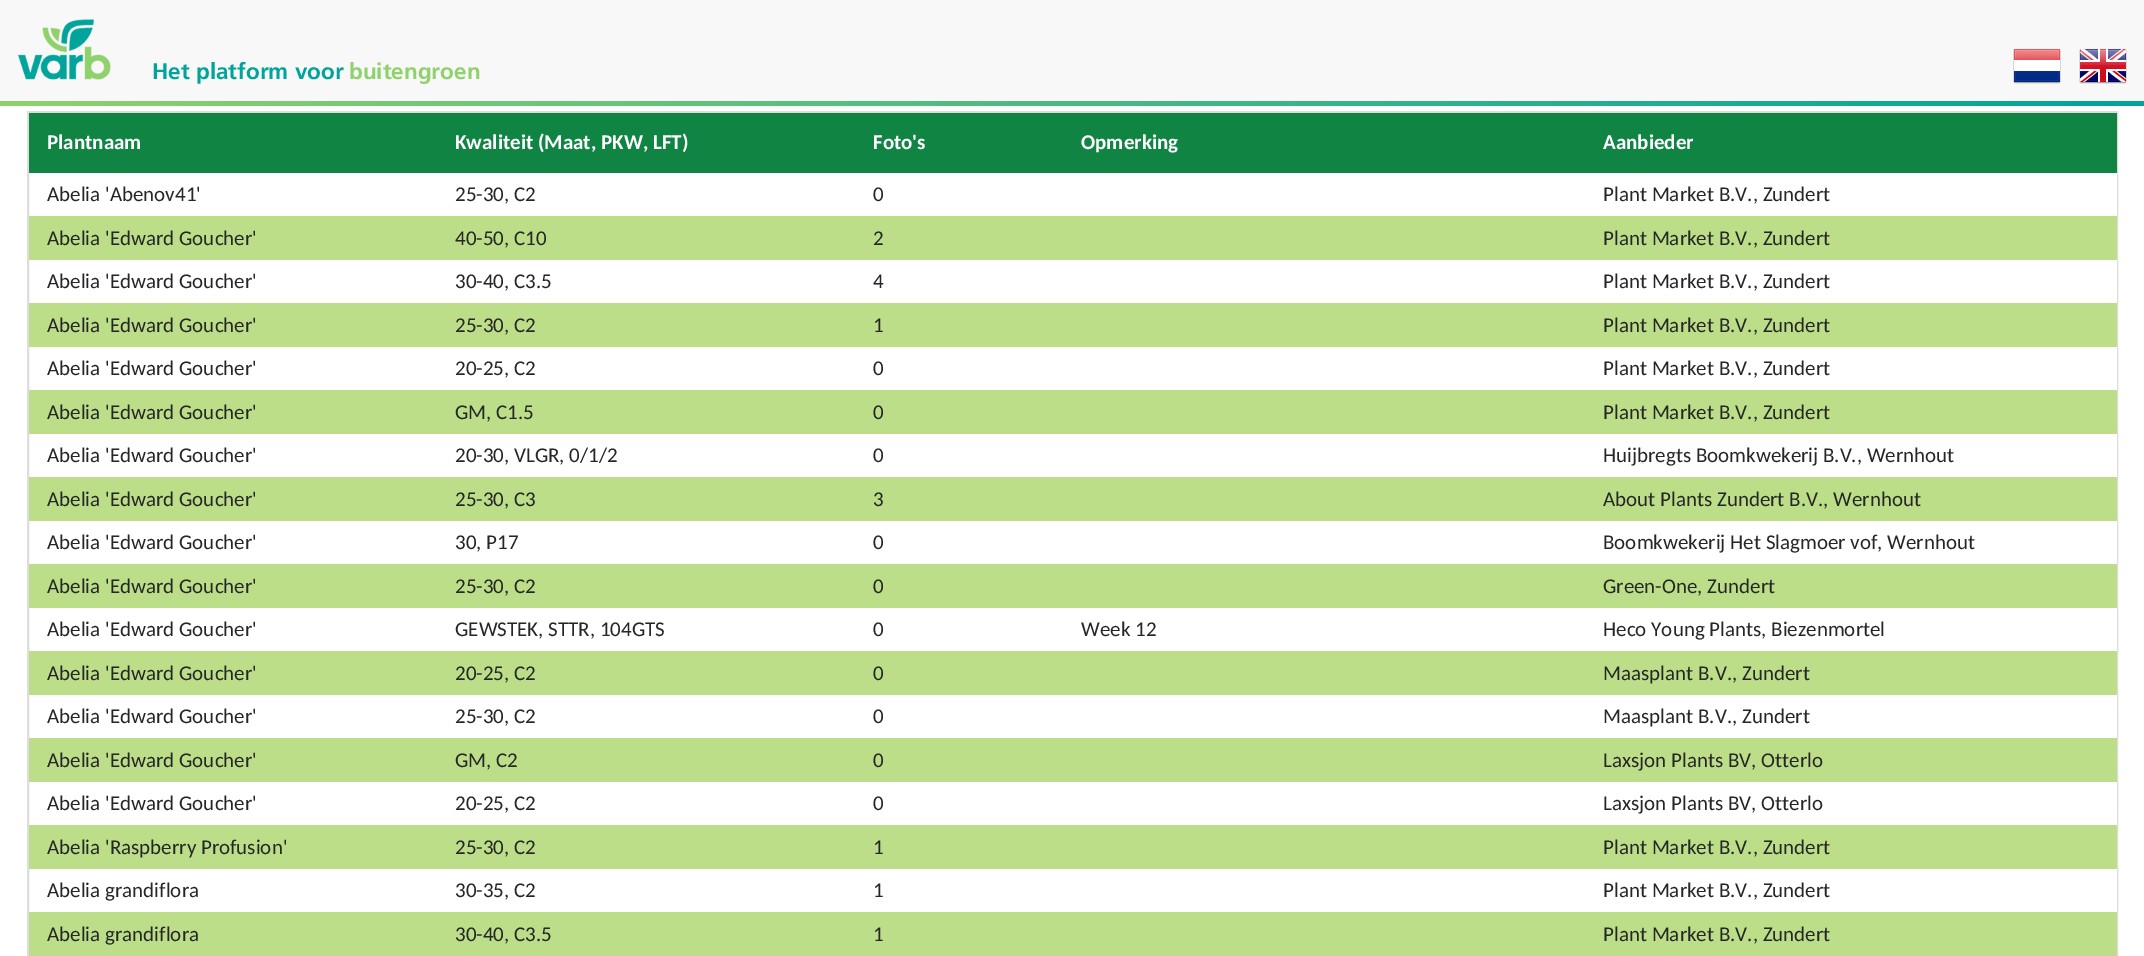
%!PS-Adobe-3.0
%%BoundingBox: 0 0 2144 956
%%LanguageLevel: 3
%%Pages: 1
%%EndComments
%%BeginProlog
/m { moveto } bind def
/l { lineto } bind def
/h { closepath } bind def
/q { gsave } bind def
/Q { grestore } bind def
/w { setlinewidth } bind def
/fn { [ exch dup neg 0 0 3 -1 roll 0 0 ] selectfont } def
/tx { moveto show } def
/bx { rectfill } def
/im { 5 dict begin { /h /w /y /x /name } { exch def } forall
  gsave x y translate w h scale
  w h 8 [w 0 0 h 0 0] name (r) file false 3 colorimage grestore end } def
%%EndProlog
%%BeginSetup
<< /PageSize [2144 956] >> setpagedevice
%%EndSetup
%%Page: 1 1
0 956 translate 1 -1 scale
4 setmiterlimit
1 setgray
0 0 2144 956 bx
0.973 setgray
0 0 2144 101 bx
(image0.raw) 18 19 93 61 im
/Frutiger-Bold 22.5 fn
0 0.643 0.604 setrgbcolor
(Het platform voor) 152 79 tx
0.561 0.82 0.416 setrgbcolor
(buitengroen) 349 79 tx
(image1.raw) 2013 48 48 36 im
(image2.raw) 2079 48 48 36 im
q 0 101 m 2144 101 l 2144 106 l 0 106 l h clip newpath
<< /ShadingType 2 /ColorSpace /DeviceRGB /Coords [0 103 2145 103] /Extend [true true] /Function << /FunctionType 2 /Domain [0 1] /C0 [0.561 0.824 0.42] /C1 [0 0.643 0.608] /N 1 >> >> shfill Q
0.867 setgray
2 w
28 112 2089 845 rectstroke
0.063 0.518 0.263 setrgbcolor
29 113 2088 60 bx
/Carlito-Bold 21 fn
1 setgray
(Plantnaam) 47 149 tx
(Kwaliteit \(Maat, PKW, LFT\)) 455 149 tx
(Foto's) 873 149 tx
(Opmerking) 1081 149 tx
(Aanbieder) 1603 149 tx
/Carlito-Regular 21 fn
0.149 setgray
(Abelia 'Abenov41') 47 201 tx
(25-30, C2) 455 201 tx
(0) 873 201 tx
1 setgray
2116 173 1 43 bx
0.149 setgray
(Plant Market B.V., Zundert) 1603 201 tx
0.737 0.871 0.533 setrgbcolor
29 216 2088 44 bx
0.149 setgray
(Abelia 'Edward Goucher') 47 245 tx
(40-50, C10) 455 245 tx
(2) 873 245 tx
(Plant Market B.V., Zundert) 1603 245 tx
(Abelia 'Edward Goucher') 47 288 tx
(30-40, C3.5) 455 288 tx
(4) 873 288 tx
1 setgray
2116 260 1 43 bx
0.149 setgray
(Plant Market B.V., Zundert) 1603 288 tx
0.737 0.871 0.533 setrgbcolor
29 303 2088 44 bx
0.149 setgray
(Abelia 'Edward Goucher') 47 332 tx
(25-30, C2) 455 332 tx
(1) 873 332 tx
(Plant Market B.V., Zundert) 1603 332 tx
(Abelia 'Edward Goucher') 47 375 tx
(20-25, C2) 455 375 tx
(0) 873 375 tx
1 setgray
2116 347 1 43 bx
0.149 setgray
(Plant Market B.V., Zundert) 1603 375 tx
0.737 0.871 0.533 setrgbcolor
29 390 2088 44 bx
0.149 setgray
(Abelia 'Edward Goucher') 47 419 tx
(GM, C1.5) 455 419 tx
(0) 873 419 tx
(Plant Market B.V., Zundert) 1603 419 tx
(Abelia 'Edward Goucher') 47 462 tx
(20-30, VLGR, 0/1/2) 455 462 tx
(0) 873 462 tx
1 setgray
2116 434 1 43 bx
0.149 setgray
(Huijbregts Boomkwekerij B.V., Wernhout) 1603 462 tx
0.737 0.871 0.533 setrgbcolor
29 477 2088 44 bx
0.149 setgray
(Abelia 'Edward Goucher') 47 506 tx
(25-30, C3) 455 506 tx
(3) 873 506 tx
(About Plants Zundert B.V., Wernhout) 1603 506 tx
(Abelia 'Edward Goucher') 47 549 tx
(30, P17) 455 549 tx
(0) 873 549 tx
1 setgray
2116 521 1 43 bx
0.149 setgray
(Boomkwekerij Het Slagmoer vof, Wernhout) 1603 549 tx
0.737 0.871 0.533 setrgbcolor
29 564 2088 44 bx
0.149 setgray
(Abelia 'Edward Goucher') 47 593 tx
(25-30, C2) 455 593 tx
(0) 873 593 tx
(Green-One, Zundert) 1603 593 tx
(Abelia 'Edward Goucher') 47 636 tx
(GEWSTEK, STTR, 104GTS) 455 636 tx
(0) 873 636 tx
(Week 12) 1081 636 tx
1 setgray
2116 608 1 43 bx
0.149 setgray
(Heco Young Plants, Biezenmortel) 1603 636 tx
0.737 0.871 0.533 setrgbcolor
29 651 2088 44 bx
0.149 setgray
(Abelia 'Edward Goucher') 47 680 tx
(20-25, C2) 455 680 tx
(0) 873 680 tx
(Maasplant B.V., Zundert) 1603 680 tx
(Abelia 'Edward Goucher') 47 723 tx
(25-30, C2) 455 723 tx
(0) 873 723 tx
1 setgray
2116 695 1 43 bx
0.149 setgray
(Maasplant B.V., Zundert) 1603 723 tx
0.737 0.871 0.533 setrgbcolor
29 738 2088 44 bx
0.149 setgray
(Abelia 'Edward Goucher') 47 767 tx
(GM, C2) 455 767 tx
(0) 873 767 tx
(Laxsjon Plants BV, Otterlo) 1603 767 tx
(Abelia 'Edward Goucher') 47 810 tx
(20-25, C2) 455 810 tx
(0) 873 810 tx
1 setgray
2116 782 1 43 bx
0.149 setgray
(Laxsjon Plants BV, Otterlo) 1603 810 tx
0.737 0.871 0.533 setrgbcolor
29 825 2088 44 bx
0.149 setgray
(Abelia 'Raspberry Profusion') 47 854 tx
(25-30, C2) 455 854 tx
(1) 873 854 tx
(Plant Market B.V., Zundert) 1603 854 tx
(Abelia grandiflora) 47 897 tx
(30-35, C2) 455 897 tx
(1) 873 897 tx
1 setgray
2116 869 1 43 bx
0.149 setgray
(Plant Market B.V., Zundert) 1603 897 tx
0.737 0.871 0.533 setrgbcolor
29 912 2088 44 bx
0.149 setgray
(Abelia grandiflora) 47 941 tx
(30-40, C3.5) 455 941 tx
(1) 873 941 tx
(Plant Market B.V., Zundert) 1603 941 tx
showpage
%%EOF
